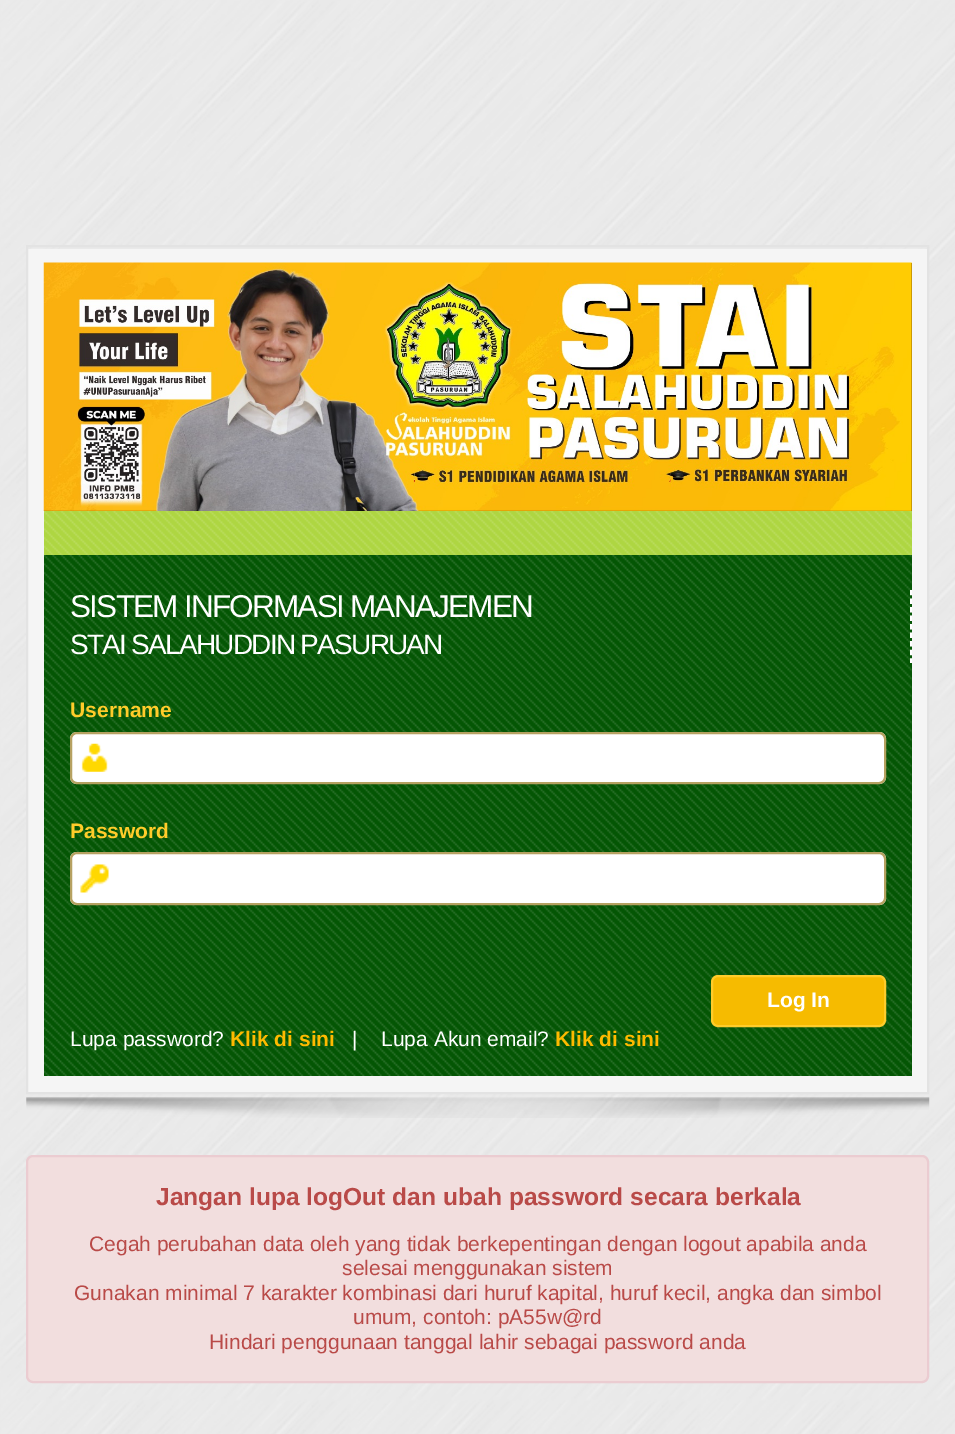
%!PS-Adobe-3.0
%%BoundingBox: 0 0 955 1434
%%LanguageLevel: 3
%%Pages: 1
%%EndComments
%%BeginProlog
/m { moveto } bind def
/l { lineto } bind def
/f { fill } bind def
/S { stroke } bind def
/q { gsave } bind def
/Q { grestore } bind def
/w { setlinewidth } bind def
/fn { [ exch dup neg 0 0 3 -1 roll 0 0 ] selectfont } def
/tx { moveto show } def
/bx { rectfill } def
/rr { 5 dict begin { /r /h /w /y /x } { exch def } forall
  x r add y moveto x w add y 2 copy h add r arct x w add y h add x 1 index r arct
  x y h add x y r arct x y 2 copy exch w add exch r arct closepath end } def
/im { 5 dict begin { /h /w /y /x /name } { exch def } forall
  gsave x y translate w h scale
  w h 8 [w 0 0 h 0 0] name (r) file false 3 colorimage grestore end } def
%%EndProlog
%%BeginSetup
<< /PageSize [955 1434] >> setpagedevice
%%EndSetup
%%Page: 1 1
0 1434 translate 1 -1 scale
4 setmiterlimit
1 setgray
0 0 955 1434 bx
(image0.raw) 0 0 955 1434 im
0.961 setgray
28 249 899 843 bx
0.914 setgray
60 247 802 2 bx
0.89 setgray
2 w
27 246 901 847 rectstroke
(image1.raw) 43 262 869 249 im
0.682 0.839 0.259 setrgbcolor
44 511 868 44 bx
(image2.raw) 44 511 868 44 im
0.016 0.337 0.016 setrgbcolor
44 555 868 521 bx
(image3.raw) 44 554 868 522 im
1 setgray
1.8 w
[5.25 3.29] 0 setdash
911 590 m 911 663 l S
/LiberationSans-Regular 31.5 fn
70 617 m -1.75 0 (SISTEM INFORMASI MANAJEMEN) ashow
/LiberationSans-Regular 28 fn
70 654 m -1.75 0 (STAI SALAHUDDIN PASURUAN) ashow
/LiberationSans-Bold 21 fn
1 0.8 0.165 setrgbcolor
(Username) 70 717 tx
1 setgray
70 732 816 52 7 rr f
(image4.raw) 81 743 27 29 im
0.714 0.631 0.38 setrgbcolor
2 w
[] 0 setdash
71 733 814 50 6 rr S
1 0.8 0.165 setrgbcolor
(Password) 70 838 tx
1 setgray
70 852 816 53 7 rr f
(image5.raw) 80 864 29 29 im
0.714 0.631 0.38 setrgbcolor
71 853 814 51 6 rr S
0.965 0.733 0 setrgbcolor
712 976 173 50 6 rr q f Q
1 0.8 0.165 setrgbcolor
S
1 setgray
(Log In) 767 1007 tx
/LiberationSans-Regular 21 fn
(Lupa password?) 70 1046 tx
/LiberationSans-Bold 21 fn
1 0.729 0 setrgbcolor
(Klik di sini) 230 1046 tx
/LiberationSans-Regular 21 fn
1 setgray
(|) 352 1046 tx
(Lupa Akun email?) 381 1046 tx
/LiberationSans-Bold 21 fn
1 0.729 0 setrgbcolor
(Klik di sini) 555 1046 tx
(image6.raw) 26 1097 904 21 im
0.949 0.871 0.871 setrgbcolor
27 1156 901 226 6 rr q f Q
0.922 0.8 0.82 setrgbcolor
S
/LiberationSans-Bold 24.6 fn
0.725 0.29 0.282 setrgbcolor
(Jangan lupa logOut dan ubah password secara berkala) 156 1205 tx
/LiberationSans-Regular 21 fn
(Cegah perubahan data oleh yang tidak berkepentingan dengan logout apabila anda) 89 1251 tx
(selesai menggunakan sistem) 342 1275 tx
(Gunakan minimal 7 karakter kombinasi dari huruf kapital, huruf kecil, angka dan simbol) 74 1300 tx
(umum, contoh: pA55w@rd) 353 1324 tx
(Hindari penggunaan tanggal lahir sebagai password anda) 209 1349 tx
showpage
%%EOF
